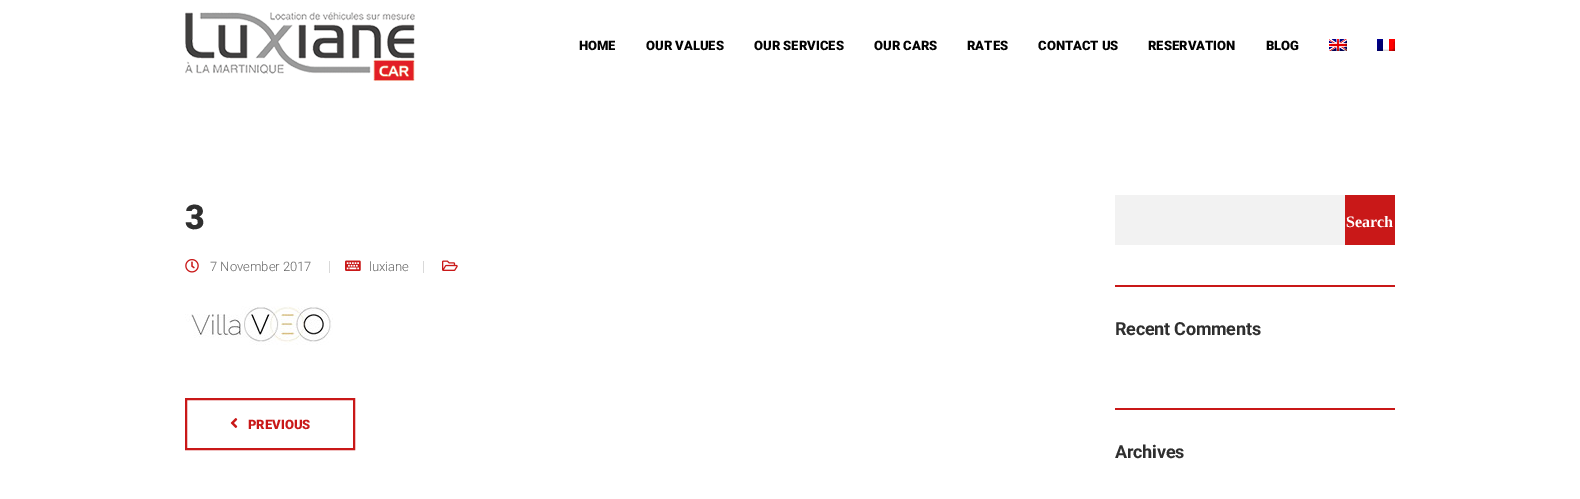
%!PS-Adobe-3.0
%%BoundingBox: 0 0 1580 499
%%LanguageLevel: 3
%%Pages: 1
%%EndComments
%%BeginProlog
/m { moveto } bind def
/w { setlinewidth } bind def
/fn { [ exch dup neg 0 0 3 -1 roll 0 0 ] selectfont } def
/tx { moveto show } def
/bx { rectfill } def
/im { 5 dict begin { /h /w /y /x /name } { exch def } forall
  gsave x y translate w h scale
  w h 8 [w 0 0 h 0 0] name (r) file false 3 colorimage grestore end } def
%%EndProlog
%%BeginSetup
<< /PageSize [1580 499] >> setpagedevice
%%EndSetup
%%Page: 1 1
0 499 translate 1 -1 scale
4 setmiterlimit
1 setgray
0 0 1580 499 bx
(image0.raw) 185 12 230 69 im
/Roboto-Black 13 fn
0.008 setgray
(HOME) 579 50 tx
(OUR VALUES) 646 50 tx
(OUR SERVICES) 754 50 tx
(OUR CARS) 874 50 tx
(RATES) 967 50 tx
(CONTACT US) 1038 50 tx
(RESERVATION) 1148 50 tx
(BLOG) 1266 50 tx
(image1.raw) 1329 39 18 12 im
(image2.raw) 1377 39 18 12 im
/Roboto-Black 34 fn
0.184 setgray
185 229 m -1 0 (3) ashow
(image3.raw) 185 259 14 14 im
/Roboto-Light 13 fn
0.4 setgray
(7 November 2017) 210 271 tx
0.851 setgray
329 261 1 12 bx
(image4.raw) 345 260 16 11 im
0.4 setgray
(luxiane) 369 271 tx
0.851 setgray
423 261 1 12 bx
(image5.raw) 442 260 16 11 im
(image6.raw) 185 306 148 39 im
0.788 0.094 0.094 setrgbcolor
2 w
186 399 168 50 rectstroke
(image7.raw) 230 418 8 10 im
/Roboto-Black 13 fn
(PREVIOUS) 248 429 tx
0.949 setgray
1115 195 230 50 bx
0.788 0.094 0.094 setrgbcolor
1345 195 50 50 bx
/LiberationSerif-Bold 16 fn
1 setgray
(Search) 1346 227 tx
0.788 0.094 0.094 setrgbcolor
1115 285 280 2 bx
/Roboto-Bold 18 fn
0.184 setgray
1115 335 m -0.25 0 (Recent Comments) ashow
0.788 0.094 0.094 setrgbcolor
1115 408 280 2 bx
0.184 setgray
1115 458 m -0.25 0 (Archives) ashow
showpage
%%EOF
